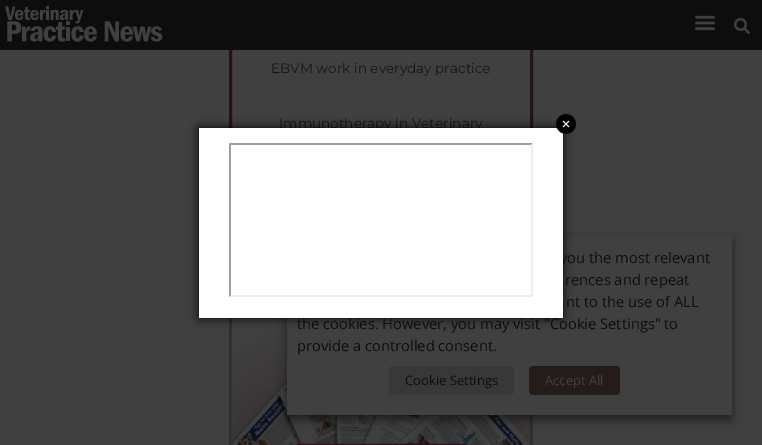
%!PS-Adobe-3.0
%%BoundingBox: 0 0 762 445
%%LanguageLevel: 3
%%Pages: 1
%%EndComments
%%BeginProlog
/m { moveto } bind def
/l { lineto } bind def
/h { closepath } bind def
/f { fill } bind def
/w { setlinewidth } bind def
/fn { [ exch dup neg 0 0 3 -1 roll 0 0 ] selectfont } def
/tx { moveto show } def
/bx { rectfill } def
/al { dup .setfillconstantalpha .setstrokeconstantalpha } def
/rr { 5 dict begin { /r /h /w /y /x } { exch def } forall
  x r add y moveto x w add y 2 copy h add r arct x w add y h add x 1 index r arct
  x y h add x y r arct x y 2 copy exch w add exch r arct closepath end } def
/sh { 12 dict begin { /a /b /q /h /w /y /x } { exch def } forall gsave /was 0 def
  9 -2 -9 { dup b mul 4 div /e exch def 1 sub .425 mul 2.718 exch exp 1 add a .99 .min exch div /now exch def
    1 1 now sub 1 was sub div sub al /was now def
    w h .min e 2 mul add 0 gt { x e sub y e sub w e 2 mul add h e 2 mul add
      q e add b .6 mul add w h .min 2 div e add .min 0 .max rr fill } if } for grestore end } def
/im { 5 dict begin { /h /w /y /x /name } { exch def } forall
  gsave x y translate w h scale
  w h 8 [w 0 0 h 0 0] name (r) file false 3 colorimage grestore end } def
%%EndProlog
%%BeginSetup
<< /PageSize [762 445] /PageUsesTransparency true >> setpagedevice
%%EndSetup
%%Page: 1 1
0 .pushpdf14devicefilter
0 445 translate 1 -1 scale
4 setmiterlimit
0.251 setgray
0 0 762 445 bx
0.161 0.063 0.118 setrgbcolor
3 w
230.5 -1.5 301 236 rectstroke
0.051 setgray
0 0 762 50 bx
(image0.raw) 5 6 158 36 im
(image1.raw) 695 15 20 16 im
(image2.raw) 734 18 16 16 im
/Montserrat-Thin 13.6 fn
0.082 setgray
(EBVM work in everyday practice) 271 73 tx
(Immunotherapy in Veterinary) 279 128 tx
0.188 setgray
230.5 301.5 301 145 rectstroke
(image3.raw) 232 318 298 127 im
0 setgray
287 241 445 179 0 5 0.5 sh
0.251 setgray
287 236 445 179 bx
0 setgray
199 128 364 190 0 5 1 sh
/OpenSans-Regular 14.7 fn
0.051 setgray
(you the most relevant) 560 263 tx
(the cookies. However, you may visit "Cookie Settings" to) 297 329 tx
1 setgray
199 128 364 190 bx
(image4.raw) 556 114 20 20 im
0.624 setgray
229 143 m 533 143 l 531 145 l 231 145 l h f
0.933 setgray
533 143 m 533 297 l 531 295 l 531 145 l h f
533 297 m 229 297 l 231 295 l 531 295 l h f
0.624 setgray
229 297 m 229 143 l 231 145 l 231 295 l h f
0.051 setgray
(rences and repeat) 565 285 tx
(nt to the use of ALL) 566 307 tx
(provide a controlled consent.) 297 351 tx
0.22 setgray
389 366 125 29 4 rr f
/OpenSans-Regular 13 fn
0.051 setgray
(Cookie Settings) 405 385 tx
0.137 0.11 0.098 setrgbcolor
529 366 91 29 4 rr f
0.251 setgray
(Accept All) 545 385 tx
.poppdf14devicefilter showpage
%%EOF
